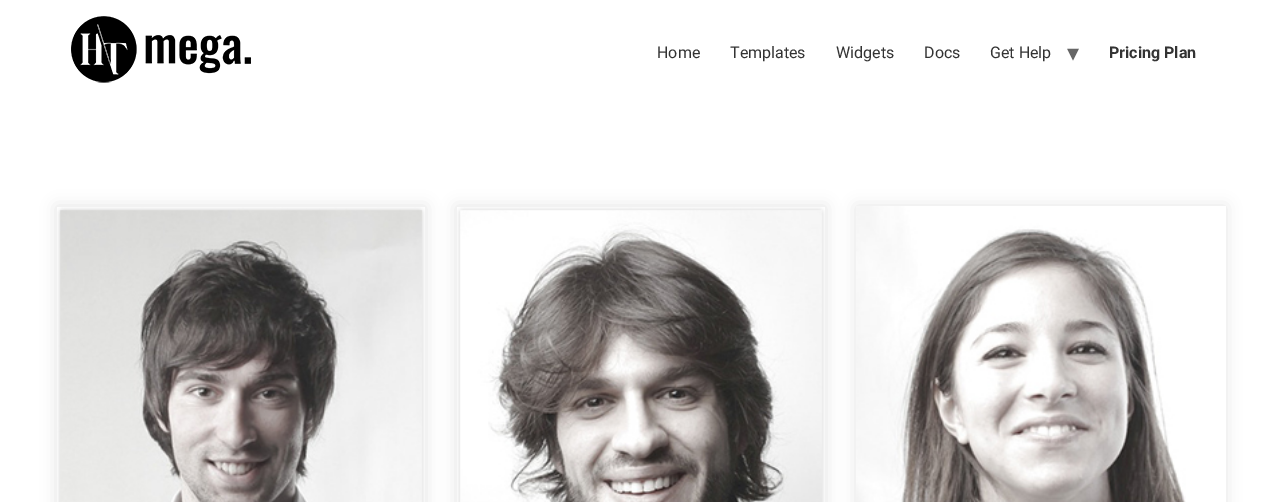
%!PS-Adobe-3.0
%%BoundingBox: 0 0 1282 502
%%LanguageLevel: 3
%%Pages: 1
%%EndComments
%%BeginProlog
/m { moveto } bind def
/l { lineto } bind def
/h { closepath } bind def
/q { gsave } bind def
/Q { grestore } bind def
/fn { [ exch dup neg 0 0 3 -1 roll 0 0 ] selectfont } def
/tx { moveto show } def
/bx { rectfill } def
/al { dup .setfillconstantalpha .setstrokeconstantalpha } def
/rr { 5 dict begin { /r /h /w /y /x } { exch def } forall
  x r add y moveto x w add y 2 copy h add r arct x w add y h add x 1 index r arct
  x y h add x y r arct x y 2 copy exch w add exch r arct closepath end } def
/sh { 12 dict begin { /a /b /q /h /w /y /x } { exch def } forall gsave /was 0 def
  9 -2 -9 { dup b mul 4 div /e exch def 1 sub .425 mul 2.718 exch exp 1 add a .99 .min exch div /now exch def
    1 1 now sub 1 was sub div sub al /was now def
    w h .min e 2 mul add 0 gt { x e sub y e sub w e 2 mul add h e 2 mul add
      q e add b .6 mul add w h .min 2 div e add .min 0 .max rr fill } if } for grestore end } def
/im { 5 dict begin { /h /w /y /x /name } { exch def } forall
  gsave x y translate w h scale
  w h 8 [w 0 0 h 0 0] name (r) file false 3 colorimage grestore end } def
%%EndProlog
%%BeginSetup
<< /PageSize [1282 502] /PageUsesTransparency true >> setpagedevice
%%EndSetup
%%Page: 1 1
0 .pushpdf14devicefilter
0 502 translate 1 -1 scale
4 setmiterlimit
1 setgray
0 0 1282 502 bx
(image0.raw) 71 16 180 67 im
/Roboto-Regular 16 fn
0.2 setgray
(Home) 657 58 tx
(Templates) 730 58 tx
(Widgets) 836 58 tx
(Docs) 924 58 tx
(Get Help) 990 58 tx
/DejaVuSans-Regular 24 fn
0.4 setgray
(▾) 1067 61 tx
/Roboto-Bold 16 fn
0.2 setgray
(Pricing Plan) 1109 58 tx
0 setgray
56 206 370 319 0 7.5 0.1 sh
(image1.raw) 57 207 368 295 im
456 206 370 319 0 7.5 0.1 sh
(image2.raw) 457 207 368 295 im
q
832 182 m 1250 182 l 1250 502 l 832 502 l h 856 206 m 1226 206 l 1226 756 l 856 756 l h eoclip newpath
856 206 370 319 0 7.5 0.1 sh
Q
(image3.raw) 856 206 330 296 im
.poppdf14devicefilter showpage
%%EOF
